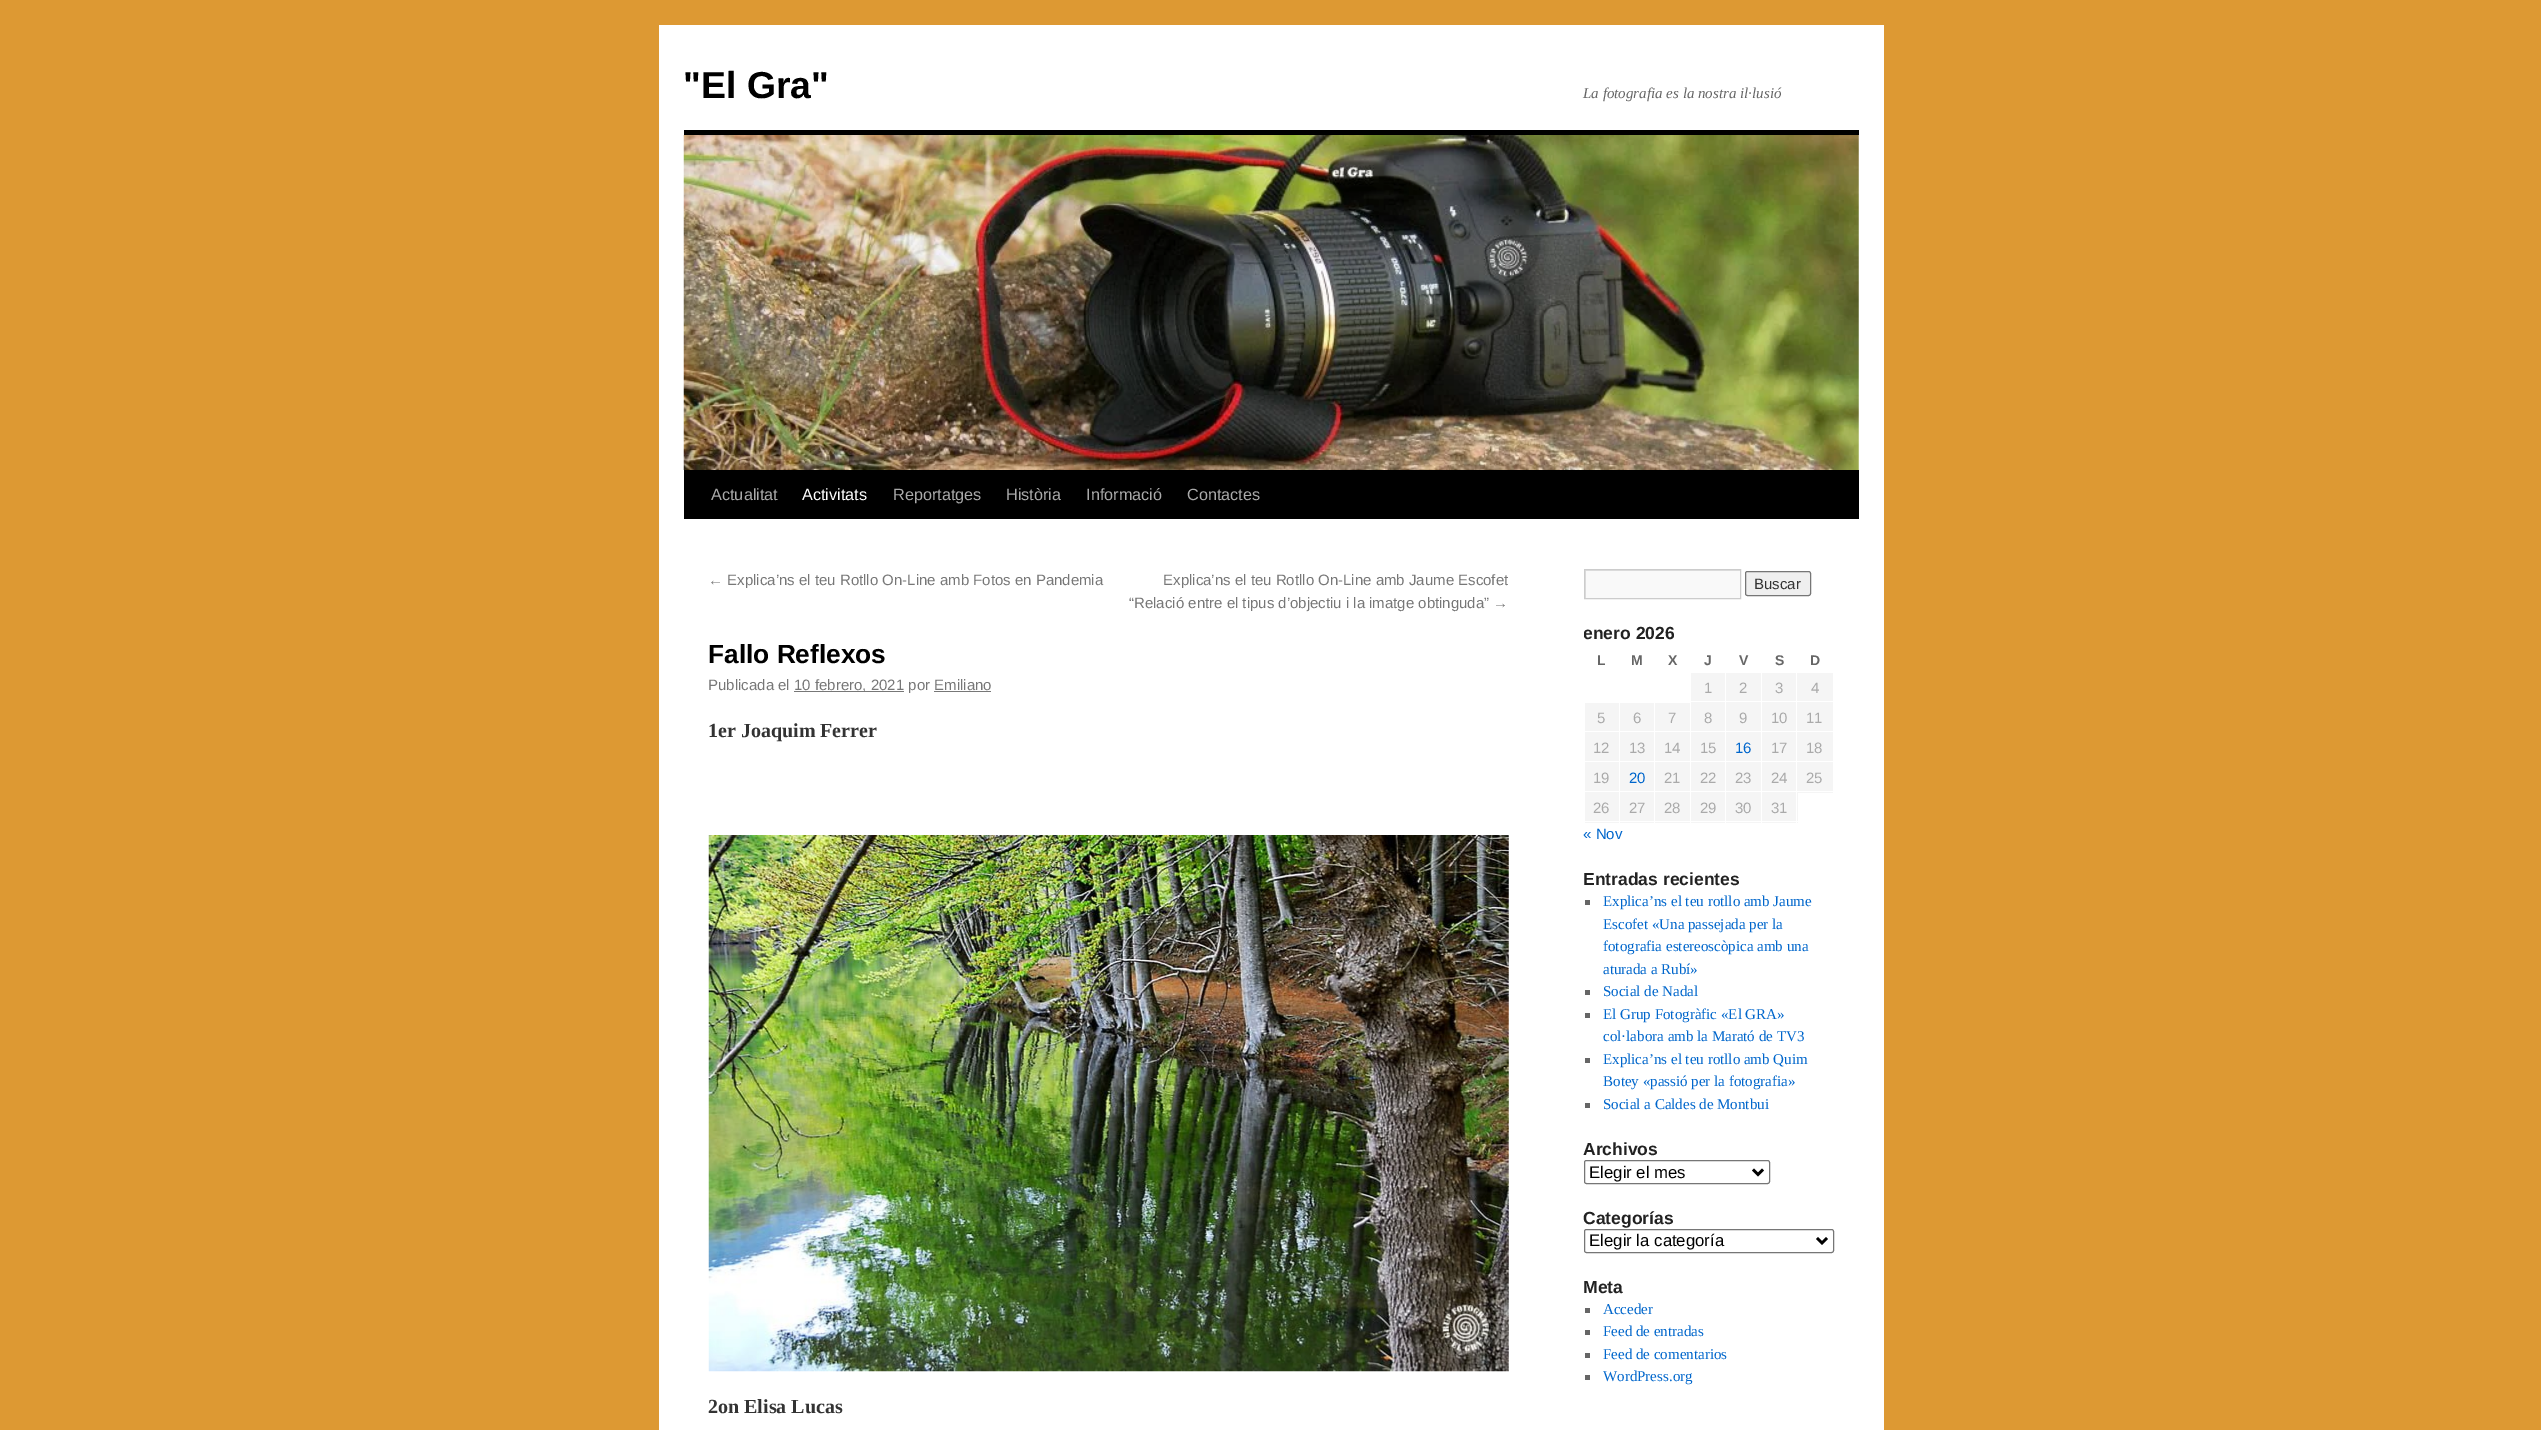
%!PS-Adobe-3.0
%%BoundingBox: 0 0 2541 1430
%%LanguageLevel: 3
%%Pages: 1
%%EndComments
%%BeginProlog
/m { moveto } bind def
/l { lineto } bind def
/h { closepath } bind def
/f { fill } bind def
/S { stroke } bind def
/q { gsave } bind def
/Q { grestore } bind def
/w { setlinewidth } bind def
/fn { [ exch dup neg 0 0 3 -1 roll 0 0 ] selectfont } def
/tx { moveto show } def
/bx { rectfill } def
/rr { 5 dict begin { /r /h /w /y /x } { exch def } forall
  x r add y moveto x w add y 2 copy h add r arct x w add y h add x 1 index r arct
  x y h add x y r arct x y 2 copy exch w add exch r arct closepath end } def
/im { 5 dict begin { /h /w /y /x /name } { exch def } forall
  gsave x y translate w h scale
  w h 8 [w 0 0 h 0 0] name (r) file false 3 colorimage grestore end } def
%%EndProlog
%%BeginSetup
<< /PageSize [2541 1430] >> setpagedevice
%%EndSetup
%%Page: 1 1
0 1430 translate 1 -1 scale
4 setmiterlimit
0.867 0.6 0.2 setrgbcolor
0 0 2541 1430 bx
1 setgray
659 25 1225 1405 bx
/LiberationSans-Bold 37.5 fn
0 setgray
("El Gra") 683 98 tx
/LiberationSerif-Italic 15 fn
0.4 setgray
(La fotografia es la nostra il·lusió) 1583 98 tx
0 setgray
684 130 1175 5 bx
684 470 1175 49 bx
(image0.raw) 683 135 1176 335 im
/LiberationSans-Regular 16.25 fn
0.667 setgray
(Actualitat) 711 500 tx
1 setgray
(Activitats) 802 500 tx
0.667 setgray
(Reportatges) 893 500 tx
(Història) 1006 500 tx
(Informació) 1086 500 tx
(Contactes) 1187 500 tx
/LiberationSans-Regular 15 fn
0.467 setgray
(← Explica’ns el teu Rotllo On-Line amb Fotos en Pandemia) 708 585 tx
(Explica’ns el teu Rotllo On-Line amb Jaume Escofet) 1163 585 tx
(“Relació entre el tipus d’objectiu i la imatge obtinguda” →) 1129 608 tx
/LiberationSans-Bold 26.25 fn
0 setgray
(Fallo Reflexos) 708 663 tx
/LiberationSans-Regular 15 fn
0.467 setgray
(Publicada el) 708 690 tx
794 691 110 1 bx
(10 febrero, 2021 por Emiliano) 794 690 tx
934 691 57 1 bx
/LiberationSerif-Bold 20 fn
0.2 setgray
(1er Joaquim Ferrer) 708 737 tx
(image1.raw) 708 835 801 537 im
(2on Elisa Lucas) 708 1413 tx
0.976 setgray
1586 571 154 27 bx
q
1585 570 155 28 rectclip
0.878 setgray
1461 446 m 1864 446 l 1864 721 l 1461 721 l h 1586 571 m 1741 571 l 1741 599 l 1586 599 l h eofill
Q
0.8 setgray
1584.5 569.5 156 29 rectstroke
0.937 setgray
1745.5 571.5 65 24 2 rr q f Q
0.463 setgray
S
/LiberationSans-Regular 15 fn
0.2 setgray
(Buscar) 1754 589 tx
q
1584 569 275 841 rectclip
/LiberationSans-Bold 17.5 fn
0.133 setgray
(enero 2026) 1583 639 tx
Q
/LiberationSans-Bold 14 fn
0.4 setgray
(L) 1597 665 tx
(M) 1631 665 tx
(X) 1668 665 tx
(J) 1704 665 tx
(V) 1739 665 tx
(S) 1775 665 tx
(D) 1810 665 tx
0.961 setgray
1691 673 34 150 bx
/LiberationSans-Regular 15 fn
0.667 setgray
(1) 1704 693 tx
0.961 setgray
1726 673 35 150 bx
0.667 setgray
(2) 1739 693 tx
0.961 setgray
1762 673 71 30 bx
0.667 setgray
(3) 1775 693 tx
1 setgray
1796 701 38 1 bx
0.961 setgray
1762 703 71 30 bx
1585 703 34 120 bx
1620 703 34 120 bx
1655 703 35 120 bx
1 setgray
1796 731 38 1 bx
0.961 setgray
1762 733 71 30 bx
1 setgray
1796 761 38 1 bx
0.961 setgray
1762 763 71 30 bx
1 setgray
1796 791 38 1 bx
0.961 setgray
1762 793 36 30 bx
1 setgray
1796 821 2 1 bx
1796 791 1 32 bx
1584 791 214 1 bx
1796 761 1 32 bx
1584 761 214 1 bx
1796 731 1 32 bx
1584 731 214 1 bx
1796 701 1 32 bx
1690 701 108 1 bx
1796 671 1 32 bx
0.667 setgray
(4) 1811 693 tx
(5) 1597 723 tx
(6) 1633 723 tx
(7) 1668 723 tx
(8) 1704 723 tx
(9) 1739 723 tx
(10) 1771 723 tx
(11) 1806 723 tx
(12) 1593 753 tx
(13) 1629 753 tx
(14) 1664 753 tx
(15) 1700 753 tx
0 0.4 0.8 setrgbcolor
(16) 1735 753 tx
0.667 setgray
(17) 1771 753 tx
(18) 1806 753 tx
(19) 1593 783 tx
0 0.4 0.8 setrgbcolor
(20) 1629 783 tx
0.667 setgray
(21) 1664 783 tx
(22) 1700 783 tx
(23) 1735 783 tx
(24) 1771 783 tx
(25) 1806 783 tx
(26) 1593 813 tx
(27) 1629 813 tx
(28) 1664 813 tx
(29) 1700 813 tx
(30) 1735 813 tx
1 setgray
1584 821 214 1 bx
0.667 setgray
(31) 1771 813 tx
0 0.4 0.8 setrgbcolor
(« Nov) 1583 839 tx
/LiberationSans-Bold 17.5 fn
0.133 setgray
(Entradas recientes) 1583 885 tx
0.4 setgray
1585 900 5 5 bx
/LiberationSerif-Regular 15 fn
0 0.4 0.8 setrgbcolor
(Explica’ns el teu rotllo amb Jaume) 1603 906 tx
(Escofet «Una passejada per la) 1603 929 tx
(fotografia estereoscòpica amb una) 1603 951 tx
(aturada a Rubí») 1603 974 tx
0.4 setgray
1585 990 5 5 bx
0 0.4 0.8 setrgbcolor
(Social de Nadal) 1603 996 tx
0.4 setgray
1585 1013 5 5 bx
0 0.4 0.8 setrgbcolor
(El Grup Fotogràfic «El GRA») 1603 1019 tx
(col·labora amb la Marató de TV3) 1603 1041 tx
0.4 setgray
1585 1058 5 5 bx
0 0.4 0.8 setrgbcolor
(Explica’ns el teu rotllo amb Quim) 1603 1064 tx
(Botey «passió per la fotografia») 1603 1086 tx
0.4 setgray
1585 1103 5 5 bx
0 0.4 0.8 setrgbcolor
(Social a Caldes de Montbui) 1603 1109 tx
/LiberationSans-Bold 17.5 fn
0.133 setgray
(Archivos) 1583 1155 tx
0.463 setgray
1584.5 1160.5 185 23 2 rr S
0 setgray
2.5 w
1753 1169.5 m 1758 1174.5 l 1763 1169.5 l S
/LiberationSans-Regular 16.75 fn
(Elegir el mes) 1589 1178 tx
/LiberationSans-Bold 17.5 fn
0.133 setgray
(Categorías) 1583 1224 tx
0.463 setgray
1 w
1584.5 1229.5 249 23 2 rr S
0 setgray
2.5 w
1817 1238 m 1822 1243 l 1827 1238 l S
/LiberationSans-Regular 16.75 fn
(Elegir la categoría) 1589 1246 tx
/LiberationSans-Bold 17.5 fn
0.133 setgray
(Meta) 1583 1293 tx
0.4 setgray
1585 1308 5 5 bx
/LiberationSerif-Regular 15 fn
0 0.4 0.8 setrgbcolor
(Acceder) 1603 1314 tx
0.4 setgray
1585 1330 5 5 bx
0 0.4 0.8 setrgbcolor
(Feed de entradas) 1603 1336 tx
0.4 setgray
1585 1353 5 5 bx
0 0.4 0.8 setrgbcolor
(Feed de comentarios) 1603 1359 tx
0.4 setgray
1585 1375 5 5 bx
0 0.4 0.8 setrgbcolor
(WordPress.org) 1603 1381 tx
showpage
%%EOF
